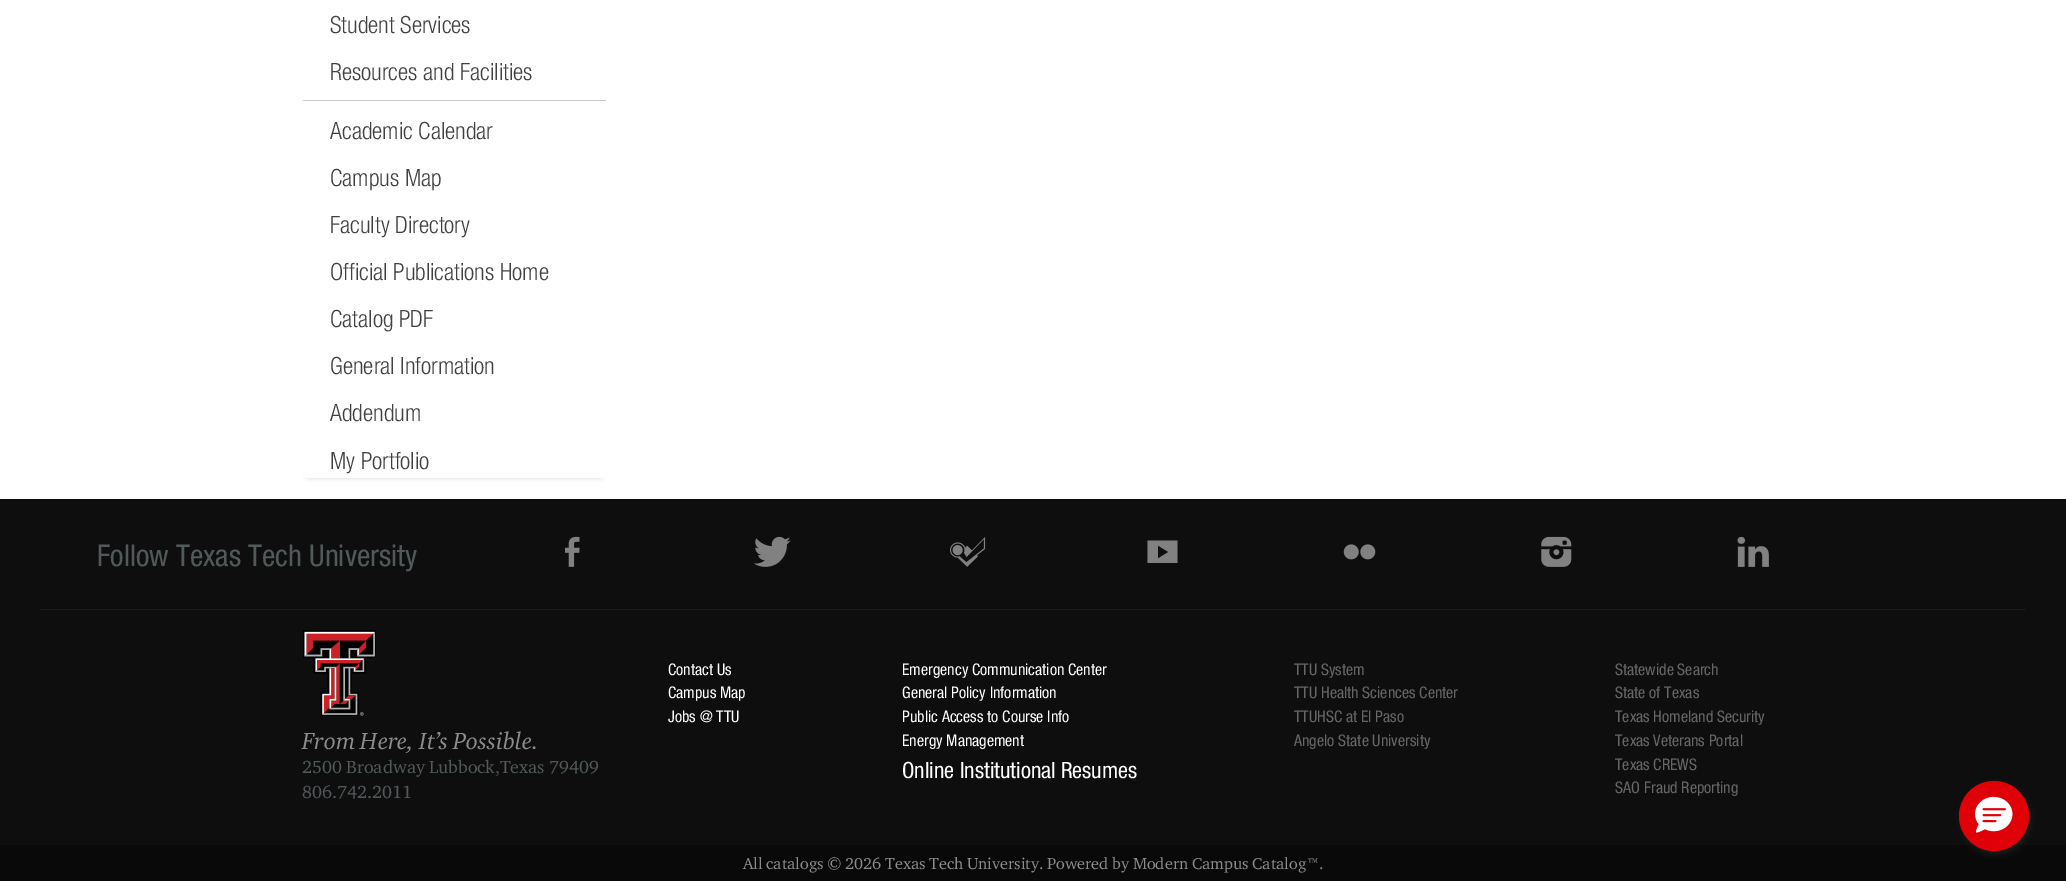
%!PS-Adobe-3.0
%%BoundingBox: 0 0 2066 882
%%LanguageLevel: 3
%%Pages: 1
%%EndComments
%%BeginProlog
/m { moveto } bind def
/l { lineto } bind def
/c { curveto } bind def
/h { closepath } bind def
/f { fill } bind def
/q { gsave } bind def
/Q { grestore } bind def
/fn { [ exch dup neg 0 0 3 -1 roll 0 0 ] selectfont } def
/tx { moveto show } def
/bx { rectfill } def
/al { dup .setfillconstantalpha .setstrokeconstantalpha } def
/ci { newpath 0 360 arc closepath } def
/rr { 5 dict begin { /r /h /w /y /x } { exch def } forall
  x r add y moveto x w add y 2 copy h add r arct x w add y h add x 1 index r arct
  x y h add x y r arct x y 2 copy exch w add exch r arct closepath end } def
/sh { 12 dict begin { /a /b /q /h /w /y /x } { exch def } forall gsave /was 0 def
  9 -2 -9 { dup b mul 4 div /e exch def 1 sub .425 mul 2.718 exch exp 1 add a .99 .min exch div /now exch def
    1 1 now sub 1 was sub div sub al /was now def
    w h .min e 2 mul add 0 gt { x e sub y e sub w e 2 mul add h e 2 mul add
      q e add b .6 mul add w h .min 2 div e add .min 0 .max rr fill } if } for grestore end } def
/im { 5 dict begin { /h /w /y /x /name } { exch def } forall
  gsave x y translate w h scale
  w h 8 [w 0 0 h 0 0] name (r) file false 3 colorimage grestore end } def
%%EndProlog
%%BeginSetup
<< /PageSize [2066 882] /PageUsesTransparency true >> setpagedevice
%%EndSetup
%%Page: 1 1
0 .pushpdf14devicefilter
0 882 translate 1 -1 scale
4 setmiterlimit
1 setgray
0 0 2066 882 bx
q
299 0 m 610 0 l 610 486 l 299 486 l h 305.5 -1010 m 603.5 -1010 l 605 -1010 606 -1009 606 -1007.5 c 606 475.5 l 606 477 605 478 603.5 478 c 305.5 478 l 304 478 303 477 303 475.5 c 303 -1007.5 l 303 -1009 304 -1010 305.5 -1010 c h eoclip newpath
0.655 setgray
309 -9 291 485 0 3 1 sh
Q
/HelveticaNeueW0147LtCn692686-Regular 23.75 fn
0.255 setgray
(Student Services) 330 33 tx
(Resources and Facilities) 330 80 tx
0.788 setgray
303 100 303 1 bx
0.255 setgray
(Academic Calendar) 330 139 tx
(Campus Map) 330 186 tx
(Faculty Directory) 330 233 tx
(Official Publications Home) 330 280 tx
(Catalog PDF) 330 327 tx
(General Information) 330 374 tx
(Addendum) 330 421 tx
(My Portfolio) 330 469 tx
0.055 setgray
0 499 2066 346 bx
0.106 setgray
40 609 1986 1 bx
/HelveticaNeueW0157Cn-Regular 30 fn
0.322 0.349 0.357 setrgbcolor
(Follow Texas Tech University) 97 566 tx
(image0.raw) 565 536 15 31 im
(image1.raw) 754 536 37 31 im
(image2.raw) 950 537 36 30 im
0.506 setgray
1147.5 563 m 1147.5 540.5 l 1177.5 540.5 l 1177.5 563 l h 1158 558.5 m 1168.5 552 l 1158 545.5 l h f
(image3.raw) 1343 544 33 16 im
(image4.raw) 1541 536 31 31 im
(image5.raw) 1737 536 32 31 im
(image6.raw) 303 630 73 86 im
/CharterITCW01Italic-Regular 24 fn
0.549 setgray
(From Here, It’s Possible.) 302 749 tx
/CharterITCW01-Regular 18 fn
0.322 0.349 0.357 setrgbcolor
(2500 Broadway Lubbock,Texas 79409) 302 773 tx
(806.742.2011) 302 798 tx
/HelveticaNeueW0157Cn-Regular 16 fn
1 setgray
(Contact Us) 668 675 tx
(Campus Map) 668 698 tx
(Jobs @ TTU) 668 722 tx
(Emergency Communication Center) 902 675 tx
(General Policy Information) 902 698 tx
(Public Access to Course Info) 902 722 tx
(Energy Management) 902 746 tx
/HelveticaNeueW0157Cn-Regular 22.4 fn
(Online Institutional Resumes) 902 778 tx
/HelveticaNeueW0157Cn-Regular 16 fn
0.4 setgray
(TTU System) 1294 675 tx
(TTU Health Sciences Center) 1294 698 tx
(TTUHSC at El Paso) 1294 722 tx
(Angelo State University) 1294 746 tx
(Statewide Search) 1615 675 tx
(State of Texas) 1615 698 tx
(Texas Homeland Security) 1615 722 tx
(Texas Veterans Portal) 1615 746 tx
(Texas CREWS) 1615 770 tx
(SAO Fraud Reporting) 1615 793 tx
0.035 setgray
0 845 2066 36 bx
/CharterITCW01-Regular 16.25 fn
0.549 setgray
(All catalogs © 2026 Texas Tech University. Powered by Modern Campus Catalog™.) 743 869 tx
0.176 setgray
1961 784 70 70 35 3 0.5 sh
0.878 0 0.031 setrgbcolor
1994 816 35 ci f
(image7.raw) 1975 796 38 37 im
.poppdf14devicefilter showpage
%%EOF
